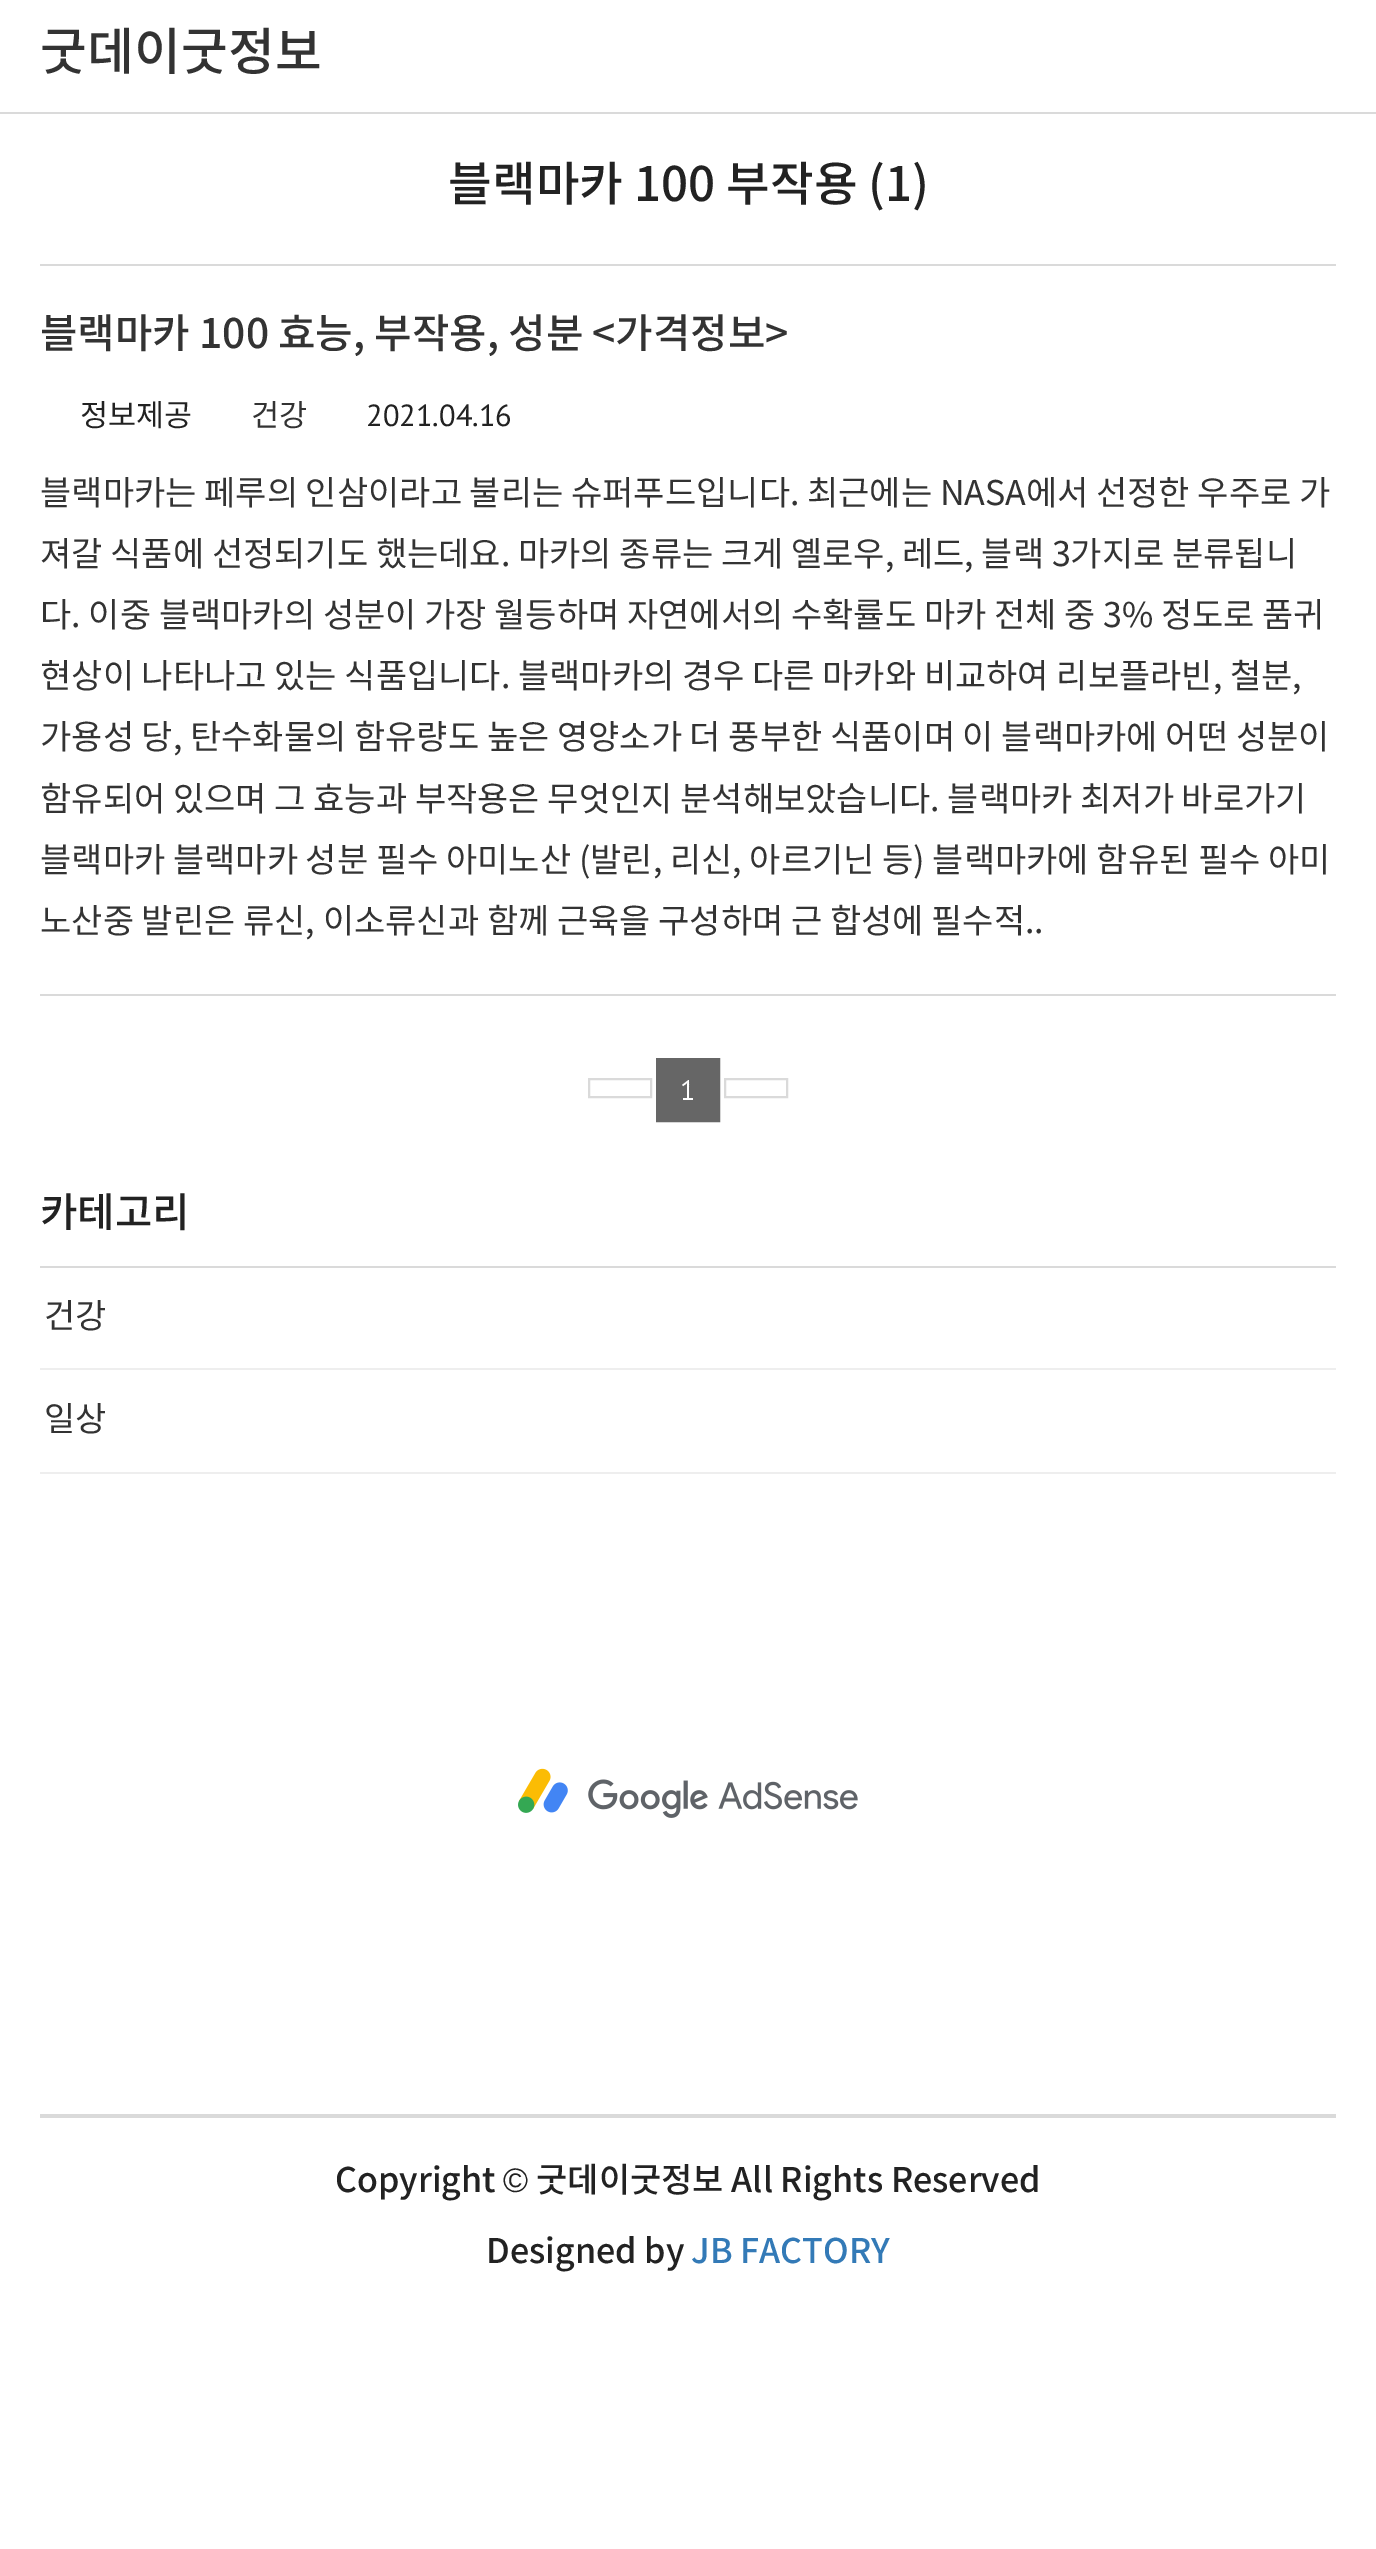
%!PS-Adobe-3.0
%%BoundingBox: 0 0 1376 2549
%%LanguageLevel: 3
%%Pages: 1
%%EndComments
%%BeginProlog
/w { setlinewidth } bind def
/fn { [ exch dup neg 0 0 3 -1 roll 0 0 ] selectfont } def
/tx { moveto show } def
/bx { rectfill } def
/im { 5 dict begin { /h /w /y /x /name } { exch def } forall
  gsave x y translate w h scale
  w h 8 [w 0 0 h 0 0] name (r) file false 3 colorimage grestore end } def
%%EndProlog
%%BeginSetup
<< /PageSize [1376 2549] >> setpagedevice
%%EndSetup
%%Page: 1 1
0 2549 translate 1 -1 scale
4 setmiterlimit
1 setgray
0 0 1376 2549 bx
/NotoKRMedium-Medium 51 fn
0.2 setgray
(굿데이굿정보) 40 70 tx
0.855 setgray
0 112 1376 2 bx
40 264 1296 2 bx
/NotoKRMedium-Medium 47.6 fn
0.133 setgray
(블랙마카 100 부작용 \(1\)) 448 201 tx
0.855 setgray
40 994 1296 2 bx
/NotoKRMedium-Medium 40.75 fn
0.2 setgray
(블랙마카 100 효능, 부작용, 성분 <가격정보>) 40 348 tx
/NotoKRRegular-Regular 30.5 fn
0.133 setgray
(정보제공) 80 426 tx
0.2 setgray
(건강) 251 426 tx
/PTSans-Regular 30.5 fn
0.133 setgray
(2021.04.16) 366 426 tx
/NotoKRRegular-Regular 34 fn
0.2 setgray
(블랙마카는 페루의 인삼이라고 불리는 슈퍼푸드입니다. 최근에는 NASA에서 선정한 우주로 가) 40 505 tx
(져갈 식품에 선정되기도 했는데요. 마카의 종류는 크게 옐로우, 레드, 블랙 3가지로 분류됩니) 40 566 tx
(다. 이중 블랙마카의 성분이 가장 월등하며 자연에서의 수확률도 마카 전체 중 3% 정도로 품귀) 40 627 tx
(현상이 나타나고 있는 식품입니다. 블랙마카의 경우 다른 마카와 비교하여 리보플라빈, 철분,) 40 688 tx
(가용성 당, 탄수화물의 함유량도 높은 영양소가 더 풍부한 식품이며 이 블랙마카에 어떤 성분이) 40 749 tx
(함유되어 있으며 그 효능과 부작용은 무엇인지 분석해보았습니다. 블랙마카 최저가 바로가기) 40 811 tx
(블랙마카 블랙마카 성분 필수 아미노산 \(발린, 리신, 아르기닌 등\) 블랙마카에 함유된 필수 아미) 40 872 tx
(노산중 발린은 류신, 이소류신과 함께 근육을 구성하며 근 합성에 필수적..) 40 933 tx
0.855 setgray
2 w
589 1079 62 18 rectstroke
0.4 setgray
657 1059 62 62 rectstroke
658 1060 60 60 bx
/PTSans-Regular 28 fn
1 setgray
(1) 680 1100 tx
0.855 setgray
725 1079 62 18 rectstroke
40 1266 1296 2 bx
/NotoKRMedium-Medium 40.75 fn
0.133 setgray
(카테고리) 40 1227 tx
0.933 setgray
40 1368 1296 2 bx
/NotoKRRegular-Regular 34 fn
0.2 setgray
(건강) 44 1328 tx
0.933 setgray
40 1472 1296 2 bx
0.2 setgray
(일상) 44 1431 tx
(image0.raw) 518 1768 340 50 im
0.855 setgray
40 2114 1296 4 bx
/NotoKRMedium-Medium 34 fn
0.133 setgray
(Copyright) 335 2192 tx
/LiberationSans-Regular 34 fn
(©) 503 2192 tx
/NotoKRMedium-Medium 34 fn
(굿데이굿정보 All Rights Reserved) 536 2192 tx
(Designed by) 486 2263 tx
0.2 0.478 0.718 setrgbcolor
(JB FACTORY) 691 2263 tx
showpage
%%EOF
